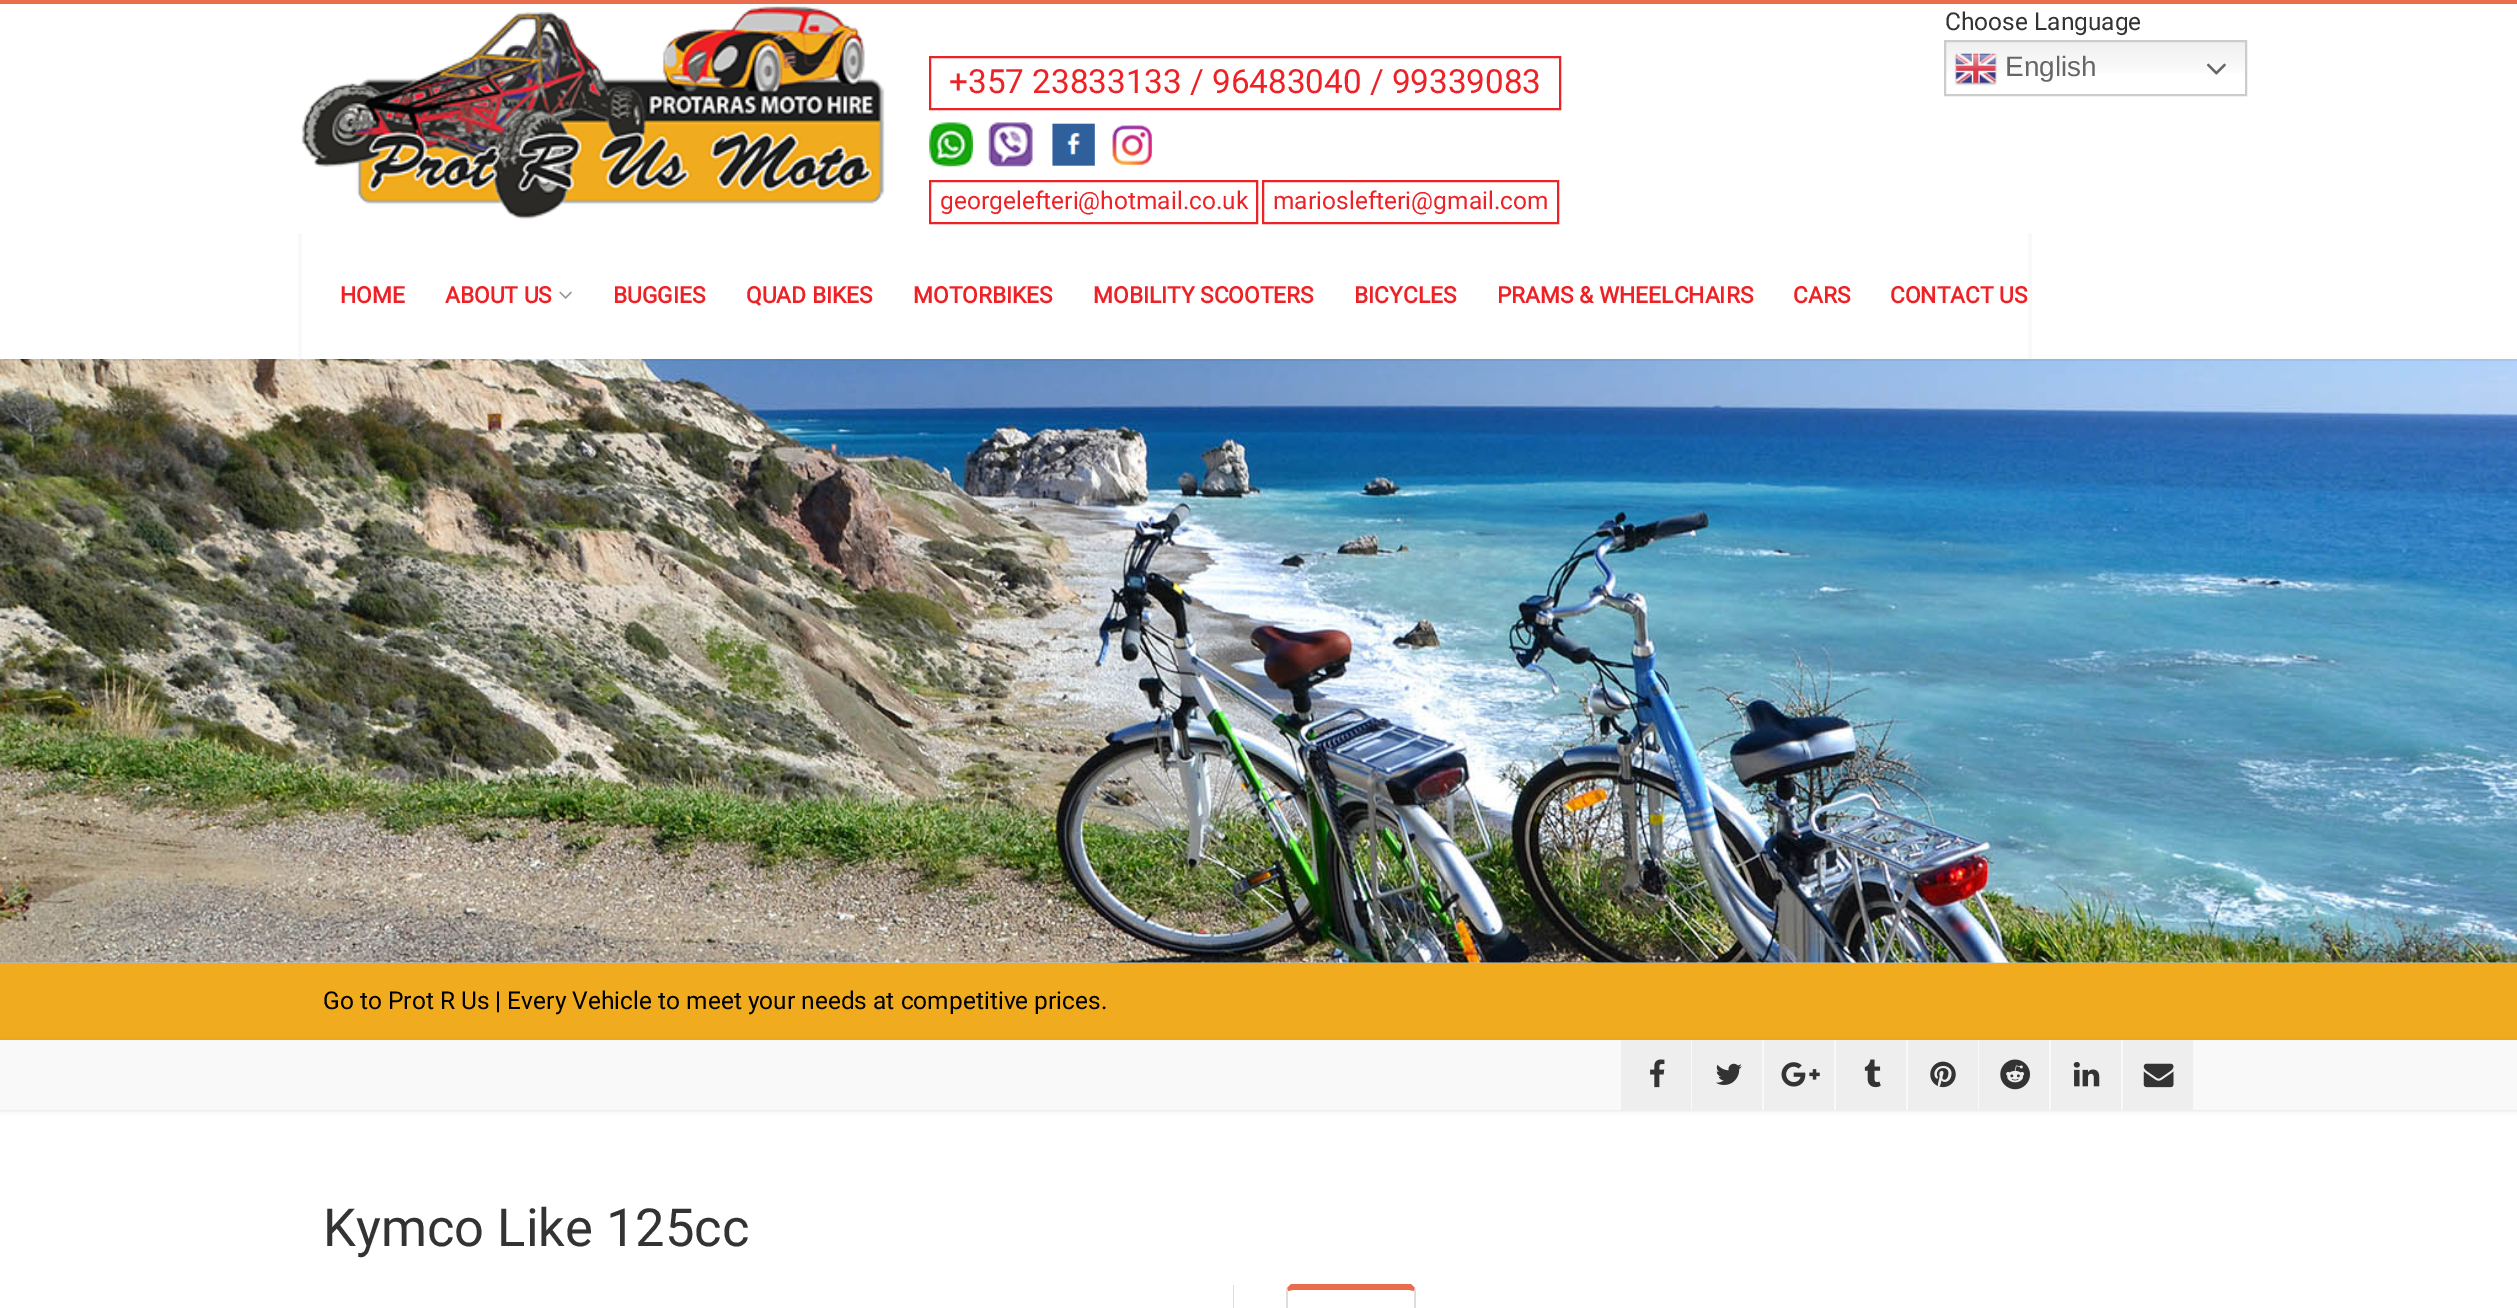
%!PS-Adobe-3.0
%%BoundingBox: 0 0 2517 1308
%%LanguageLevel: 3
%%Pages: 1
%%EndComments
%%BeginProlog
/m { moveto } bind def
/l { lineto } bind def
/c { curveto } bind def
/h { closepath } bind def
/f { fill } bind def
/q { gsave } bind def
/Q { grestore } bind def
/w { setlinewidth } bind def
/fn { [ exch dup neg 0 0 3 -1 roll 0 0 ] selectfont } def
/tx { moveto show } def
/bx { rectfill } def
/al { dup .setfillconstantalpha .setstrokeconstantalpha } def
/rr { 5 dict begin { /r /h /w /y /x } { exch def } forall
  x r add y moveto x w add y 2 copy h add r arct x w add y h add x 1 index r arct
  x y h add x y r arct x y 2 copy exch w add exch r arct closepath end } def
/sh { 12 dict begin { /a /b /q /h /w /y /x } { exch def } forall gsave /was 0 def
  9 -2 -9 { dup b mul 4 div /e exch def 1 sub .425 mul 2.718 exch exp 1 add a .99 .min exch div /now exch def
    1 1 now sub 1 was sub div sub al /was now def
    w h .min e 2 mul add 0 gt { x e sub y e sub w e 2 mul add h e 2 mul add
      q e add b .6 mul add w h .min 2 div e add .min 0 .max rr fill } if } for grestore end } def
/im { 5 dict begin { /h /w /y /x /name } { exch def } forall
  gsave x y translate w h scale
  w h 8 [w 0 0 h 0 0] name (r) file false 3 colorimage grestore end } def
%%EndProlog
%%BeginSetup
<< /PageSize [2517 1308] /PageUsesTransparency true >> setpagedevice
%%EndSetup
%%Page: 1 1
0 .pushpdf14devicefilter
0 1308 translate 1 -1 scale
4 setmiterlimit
1 setgray
0 0 2517 1308 bx
0.914 0.424 0.298 setrgbcolor
0 0 2517 4 bx
0.8 setgray
0 962 2517 1 bx
(image8.raw) 0 359 2517 604 im
0.05 al
0 setgray
0 359 2517 2 bx
1 al
(image0.raw) 301 6 584 213 im
/Roboto-Regular 24.5 fn
0.2 setgray
(Choose Language) 1945 30 tx
q 1946 42 m 2245 42 l 2245 73 l 1946 73 l h clip newpath
<< /ShadingType 2 /ColorSpace /DeviceRGB /Coords [2096 40 2096 96] /Extend [true true] /Function << /FunctionType 3 /Domain [0 1] /Functions [<< /FunctionType 2 /Domain [0 1] /C0 [0.937 0.937 0.937] /C1 [1 1 1] /N 1 >> << /FunctionType 2 /Domain [0 1] /C0 [1 1 1] /C1 [1 1 1] /N 1 >>] /Bounds [0.7] /Encode [0 1 0 1] >> >> shfill Q
0.8 setgray
2 w
1945 41 301 54 rectstroke
(image1.raw) 1954 53 43 33 im
/LiberationSans-Regular 28 fn
0.4 setgray
(English) 2005 76 tx
(image2.raw) 2207 63 19 12 im
0.929 0.133 0.153 setrgbcolor
930 57 630 52 rectstroke
/Roboto-Regular 33.25 fn
(+357 23833133 / 96483040 / 99339083) 949 93 tx
(image3.raw) 929 122 44 45 im
(image4.raw) 988 122 45 45 im
(image5.raw) 1052 123 43 43 im
(image6.raw) 1112 125 40 40 im
930 181 327 42 rectstroke
/Roboto-Regular 24.5 fn
(georgelefteri@hotmail.co.uk) 940 209 tx
1263 181 295 42 rectstroke
(marioslefteri@gmail.com) 1273 209 tx
0.976 setgray
2028 233 4 126 bx
298 233 4 126 bx
/Roboto-Bold 22.75 fn
0.929 0.133 0.153 setrgbcolor
(HOME) 340 303 tx
(ABOUT US) 445 303 tx
(image7.raw) 559 291 13 8 im
(BUGGIES) 613 303 tx
(QUAD BIKES) 746 303 tx
(MOTORBIKES) 913 303 tx
(MOBILITY SCOOTERS) 1093 303 tx
(BICYCLES) 1354 303 tx
(PRAMS & WHEELCHAIRS) 1497 303 tx
(CARS) 1793 303 tx
(CONTACT US) 1890 303 tx
0.945 0.671 0.118 setrgbcolor
0 963 2517 77 bx
/Roboto-Regular 24.5 fn
0 setgray
(Go to Prot R Us | Every Vehicle to meet your needs at competitive prices.) 323 1009 tx
0 1041 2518 70 0 2 0.1 sh
0.976 setgray
0 1040 2517 70 bx
0.933 setgray
1621 1040 70 70 bx
(image9.raw) 1650 1059 15 29 im
1692 1040 70 70 bx
(image10.raw) 1716 1063 26 22 im
1764 1040 70 70 bx
(image11.raw) 1781 1062 39 25 im
1836 1040 70 70 bx
(image12.raw) 1864 1059 17 29 im
1908 1040 70 70 bx
(image13.raw) 1930 1061 26 27 im
1979 1040 70 70 bx
(image14.raw) 2000 1059 30 31 im
2051 1040 70 70 bx
(image15.raw) 2073 1062 27 25 im
2123 1040 70 70 bx
(image16.raw) 2143 1063 31 25 im
/Roboto-Regular 52.5 fn
0.2 setgray
(Kymco Like 125cc) 323 1246 tx
0.867 setgray
1233 1285 1 23 bx
0.914 0.424 0.298 setrgbcolor
1293 1290 m 1291 1290 1289 1291 1288 1291 c 1287 1288 l 1291 1284 l 1411 1284 l 1415 1288 l 1414 1291 l 1413 1291 1411 1290 1409 1290 c h f
0.867 setgray
1415 1288 m 1416 1290 l 1416 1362 l 1414 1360 l 1414 1292 l 1414 1291 l h f
1286 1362 m 1286 1290 l 1287 1288 l 1288 1291 l 1288 1292 l 1288 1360 l h f
.poppdf14devicefilter showpage
%%EOF
